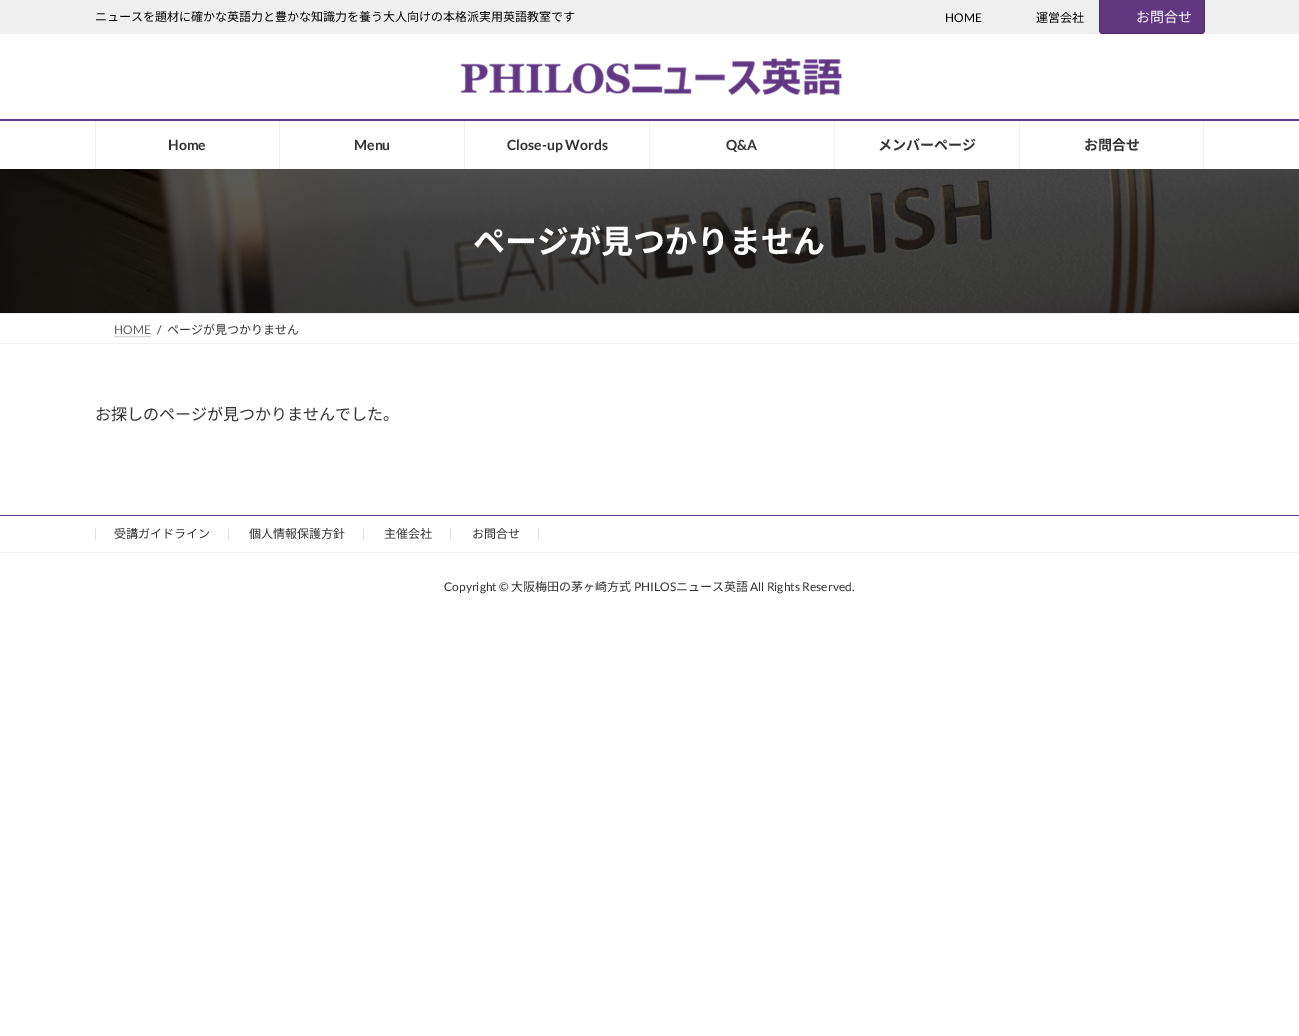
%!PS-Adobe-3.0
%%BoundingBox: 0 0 1299 1036
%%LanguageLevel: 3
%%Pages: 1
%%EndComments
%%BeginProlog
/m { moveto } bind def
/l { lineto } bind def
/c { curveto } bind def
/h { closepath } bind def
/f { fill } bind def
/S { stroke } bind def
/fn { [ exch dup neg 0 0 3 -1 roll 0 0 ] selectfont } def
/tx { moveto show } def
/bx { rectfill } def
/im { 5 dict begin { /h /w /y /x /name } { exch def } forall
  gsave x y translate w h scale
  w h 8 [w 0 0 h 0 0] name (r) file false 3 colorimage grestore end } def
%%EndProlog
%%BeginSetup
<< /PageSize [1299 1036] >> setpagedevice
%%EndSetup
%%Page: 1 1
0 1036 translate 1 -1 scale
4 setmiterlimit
1 setgray
0 0 1299 1036 bx
0.937 setgray
0 0 1299 34 bx
/NotoSansJP-Regular 12 fn
0 setgray
(ニュースを題材に確かな英語力と豊かな知識力を養う大人向けの本格派実用英語教室です) 95 21 tx
/Lato-Regular 12 fn
(HOME) 945 22 tx
/NotoSansJP-Regular 12 fn
(運営会社) 1036 22 tx
0.376 0.216 0.502 setrgbcolor
1099 0 m 1205 0 l 1205 30 l 1205 32 1203 34 1201 34 c 1103 34 l 1101 34 1099 32 1099 30 c h f
0.302 0.173 0.4 setrgbcolor
1099 0 m 1205 0 l 1205 30 l 1205 32 1203 34 1201 34 c 1103 34 l 1101 34 1099 32 1099 30 c h 1100 0 m 1204 0 l 1204 30 l 1204 32 1203 33 1201 33 c 1103 33 l 1101 33 1100 32 1100 30 c h eofill
/NotoSansJP-Regular 14 fn
1 setgray
(お問合せ) 1136 22 tx
(image0.raw) 460 58 382 38 im
0.376 0.216 0.502 setrgbcolor
0 119 1299 2 bx
0.941 setgray
279 121 1 48 bx
95 121 1 48 bx
/Lato-Bold 14 fn
0.2 setgray
(Home) 168 150 tx
0.941 setgray
464 121 1 48 bx
0.2 setgray
(Menu) 354 150 tx
0.941 setgray
649 121 1 48 bx
0.2 setgray
(Close-up Words) 507 150 tx
0.941 setgray
834 121 1 48 bx
0.2 setgray
(Q&A) 726 150 tx
0.941 setgray
1019 121 1 48 bx
/NotoSansJP-Bold 14 fn
0.2 setgray
(メンバーページ) 878 150 tx
0.941 setgray
1203 121 1 48 bx
0.2 setgray
(お問合せ) 1084 150 tx
(image1.raw) 0 169 1299 144 im
/NotoSansJP-Bold 32 fn
1 setgray
(ページが見つかりません) 473 253 tx
0.941 setgray
0 313 1299 1 bx
0 343 1299 1 bx
/Lato-Regular 12 fn
0.4 setgray
(HOME) 114 334 tx
0.702 setgray
[1 1] 0 setdash
114.5 336.5 m 151 336.5 l S
0.2 setgray
(/) 157 334 tx
/NotoSansJP-Regular 12 fn
(ページが見つかりません) 167 334 tx
/NotoSansJP-Regular 16 fn
(お探しのページが見つかりませんでした。) 95 420 tx
0.376 0.216 0.502 setrgbcolor
0 515 1299 1 bx
0.941 setgray
0 552 1299 1 bx
0.878 setgray
228 528 1 12 bx
95 528 1 12 bx
/NotoSansJP-Regular 12 fn
0.2 setgray
(受講ガイドライン) 114 538 tx
0.878 setgray
363 528 1 12 bx
0.2 setgray
(個人情報保護方針) 249 538 tx
0.878 setgray
450 528 1 12 bx
0.2 setgray
(主催会社) 384 538 tx
0.878 setgray
538 528 1 12 bx
0.2 setgray
(お問合せ) 472 538 tx
/Lato-Regular 12 fn
(Copyright ©) 444 591 tx
/NotoSansJP-Regular 12 fn
(大阪梅田の茅ヶ崎方式) 511 591 tx
/Lato-Regular 12 fn
(PHILOS) 634 591 tx
/NotoSansJP-Regular 12 fn
(ニュース英語) 676 591 tx
/Lato-Regular 12 fn
(All Rights Reserved.) 750 591 tx
showpage
%%EOF
